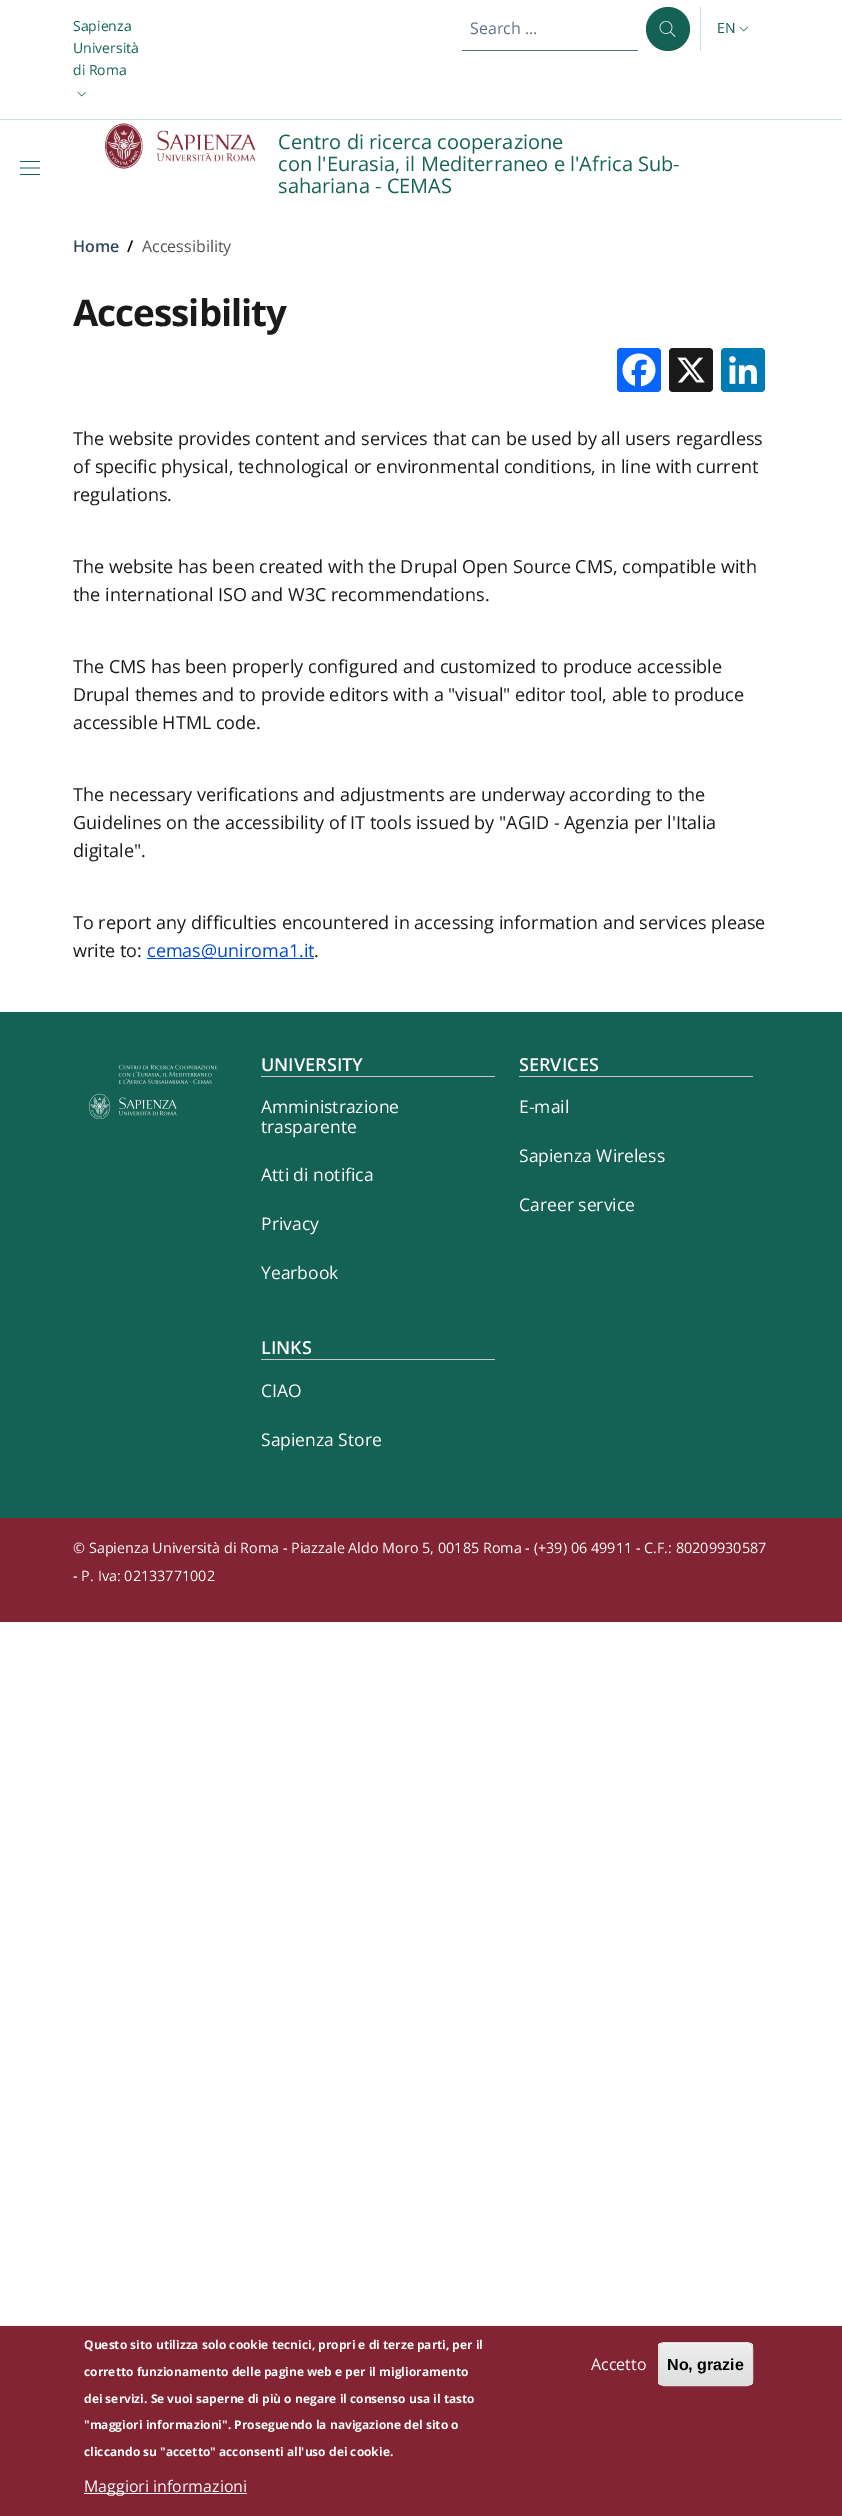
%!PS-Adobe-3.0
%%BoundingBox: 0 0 842 2516
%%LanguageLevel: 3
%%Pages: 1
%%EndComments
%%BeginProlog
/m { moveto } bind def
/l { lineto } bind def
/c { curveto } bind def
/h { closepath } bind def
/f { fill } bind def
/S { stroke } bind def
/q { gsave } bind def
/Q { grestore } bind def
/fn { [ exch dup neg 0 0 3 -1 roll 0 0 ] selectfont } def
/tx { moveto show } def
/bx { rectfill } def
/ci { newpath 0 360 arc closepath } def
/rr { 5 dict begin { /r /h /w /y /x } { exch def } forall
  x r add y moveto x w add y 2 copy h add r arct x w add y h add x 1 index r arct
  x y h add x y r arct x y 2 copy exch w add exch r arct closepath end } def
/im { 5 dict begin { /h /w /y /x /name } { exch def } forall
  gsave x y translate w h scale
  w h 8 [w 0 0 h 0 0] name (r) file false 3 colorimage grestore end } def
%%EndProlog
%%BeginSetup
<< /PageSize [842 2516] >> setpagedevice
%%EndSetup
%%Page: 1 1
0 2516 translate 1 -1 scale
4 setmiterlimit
1 setgray
0 0 842 2516 bx
0.816 0.875 0.867 setrgbcolor
0 119 842 1 bx
/OpenSans-Regular 14 fn
0.078 0.384 0.333 setrgbcolor
(Sapienza) 73 31 tx
(Università) 73 53 tx
(di Roma) 73 75 tx
(image0.raw) 77 91 9 6 im
0.8 0.871 0.878 setrgbcolor
700 7 1 44 bx
0.365 0.439 0.514 setrgbcolor
462 50 176 1 bx
/OpenSans-Regular 16 fn
(Search ...) 470 34 tx
0.078 0.384 0.333 setrgbcolor
668 29 22 ci f
(image1.raw) 659 21 17 16 im
/OpenSans-Regular 14 fn
(EN) 717 33 tx
(image0.raw) 739 26 9 6 im
(image2.raw) 20 161 20 14 im
(image3.raw) 105 123 151 46 im
/OpenSans-Regular 20 fn
(Centro di ricerca cooperazione) 278 149 tx
(con l'Eurasia, il Mediterraneo e l'Africa Sub-) 278 171 tx
(sahariana - CEMAS) 278 193 tx
/OpenSans-SemiBold 16 fn
0.188 0.278 0.373 setrgbcolor
(Home) 73 252 tx
0 setgray
(/) 127 252 tx
/OpenSans-Regular 16 fn
0.322 setgray
(Accessibility) 142 252 tx
/OpenSans-Bold 36.75 fn
0.102 setgray
73 326 m -1 0 (Accessibility) ashow
0.031 0.4 1 setrgbcolor
617 348 44 44 4 rr f
(image4.raw) 622 353 34 34 im
0.102 setgray
669 348 44 44 4 rr f
(image5.raw) 677 357 28 26 im
0 0.482 0.71 setrgbcolor
721 348 44 44 4 rr f
(image6.raw) 729 356 28 28 im
/OpenSans-Regular 18 fn
0.102 setgray
(The website provides content and services that can be used by all users regardless) 73 445 tx
(of specific physical, technological or environmental conditions, in line with current) 73 473 tx
(regulations.) 73 501 tx
(The website has been created with the Drupal Open Source CMS, compatible with) 73 573 tx
(the international ISO and W3C recommendations.) 73 601 tx
(The CMS has been properly configured and customized to produce accessible) 73 673 tx
(Drupal themes and to provide editors with a "visual" editor tool, able to produce) 73 701 tx
(accessible HTML code.) 73 729 tx
(The necessary verifications and adjustments are underway according to the) 73 801 tx
(Guidelines on the accessibility of IT tools issued by "AGID - Agenzia per l'Italia) 73 829 tx
(digitale".) 73 857 tx
(To report any difficulties encountered in accessing information and services please) 73 929 tx
(write to:) 73 957 tx
0 0.294 0.839 setrgbcolor
147 958 167 1 bx
(cemas@uniroma1.it) 147 957 tx
0.102 setgray
(.) 314 957 tx
0.078 0.384 0.333 setrgbcolor
0 1012 842 506 bx
(image7.raw) 89 1064 129 55 im
0.773 0.78 0.788 setrgbcolor
261 1076 234 1 bx
/OpenSans-SemiBold 18 fn
1 setgray
(UNIVERSITY) 261 1071 tx
/OpenSans-Regular 17.5 fn
(Amministrazione) 261 1113 tx
(trasparente) 261 1133 tx
(Atti di notifica) 261 1181 tx
(Privacy) 261 1230 tx
(Yearbook) 261 1279 tx
0.773 0.78 0.788 setrgbcolor
519 1076 234 1 bx
/OpenSans-SemiBold 18 fn
1 setgray
(SERVICES) 519 1071 tx
/OpenSans-Regular 17.5 fn
(E-mail) 519 1113 tx
(Sapienza Wireless) 519 1162 tx
(Career service) 519 1211 tx
0.773 0.78 0.788 setrgbcolor
261 1359 234 1 bx
/OpenSans-SemiBold 18 fn
1 setgray
(LINKS) 261 1354 tx
/OpenSans-Regular 17.5 fn
(CIAO) 261 1397 tx
(Sapienza Store) 261 1446 tx
0.51 0.141 0.2 setrgbcolor
0 1518 842 104 bx
/OpenSans-Regular 14.4 fn
1 setgray
(© Sapienza Università di Roma - Piazzale Aldo Moro 5, 00185 Roma - \(+39\) 06 49911 - C.F.: 80209930587) 73 1553 tx
(- P. Iva: 02133771002) 73 1581 tx
0.51 0.141 0.2 setrgbcolor
0 2326 842 190 bx
/OpenSans-Bold 12 fn
1 setgray
(Questo sito utilizza solo cookie tecnici, propri e di terze parti, per il) 84 2349 tx
(corretto funzionamento delle pagine web e per il miglioramento) 84 2376 tx
(dei servizi. Se vuoi saperne di più o negare il consenso usa il tasto) 84 2403 tx
("maggiori informazioni". Proseguendo la navigazione del sito o) 84 2429 tx
(cliccando su "accetto" acconsenti all'uso dei cookie.) 84 2456 tx
84 2493 163 1 bx
/OpenSans-Regular 16 fn
(Maggiori informazioni) 84 2492 tx
(Accetto) 591 2370 tx
q
658 2342 95 44 6 rr clip newpath
q 658 2343 m 753 2343 l 753 2385 l 658 2385 l h clip newpath
<< /ShadingType 2 /ColorSpace /DeviceRGB /Coords [706 2343 706 2385] /Extend [true true] /Function << /FunctionType 3 /Domain [0 1] /Functions [<< /FunctionType 2 /Domain [0 1] /C0 [0.929 0.929 0.929] /C1 [0.929 0.929 0.929] /N 1 >> << /FunctionType 2 /Domain [0 1] /C0 [0.929 0.929 0.929] /C1 [0.875 0.875 0.875] /N 1 >>] /Bounds [0.05] /Encode [0 1 0 1] >> >> shfill Q
Q
664 2344 m 747 2344 l 750 2344 752 2346 752 2349 c 752 2340 739 2343 733 2343 c 678 2343 l 672 2343 659 2340 659 2349 c 659 2346 661 2344 664 2344 c h f
0.863 setgray
658.5 2342.5 94 43 5.5 rr S
/LiberationSans-Bold 16 fn
0 setgray
(No, grazie) 667 2370 tx
showpage
%%EOF
